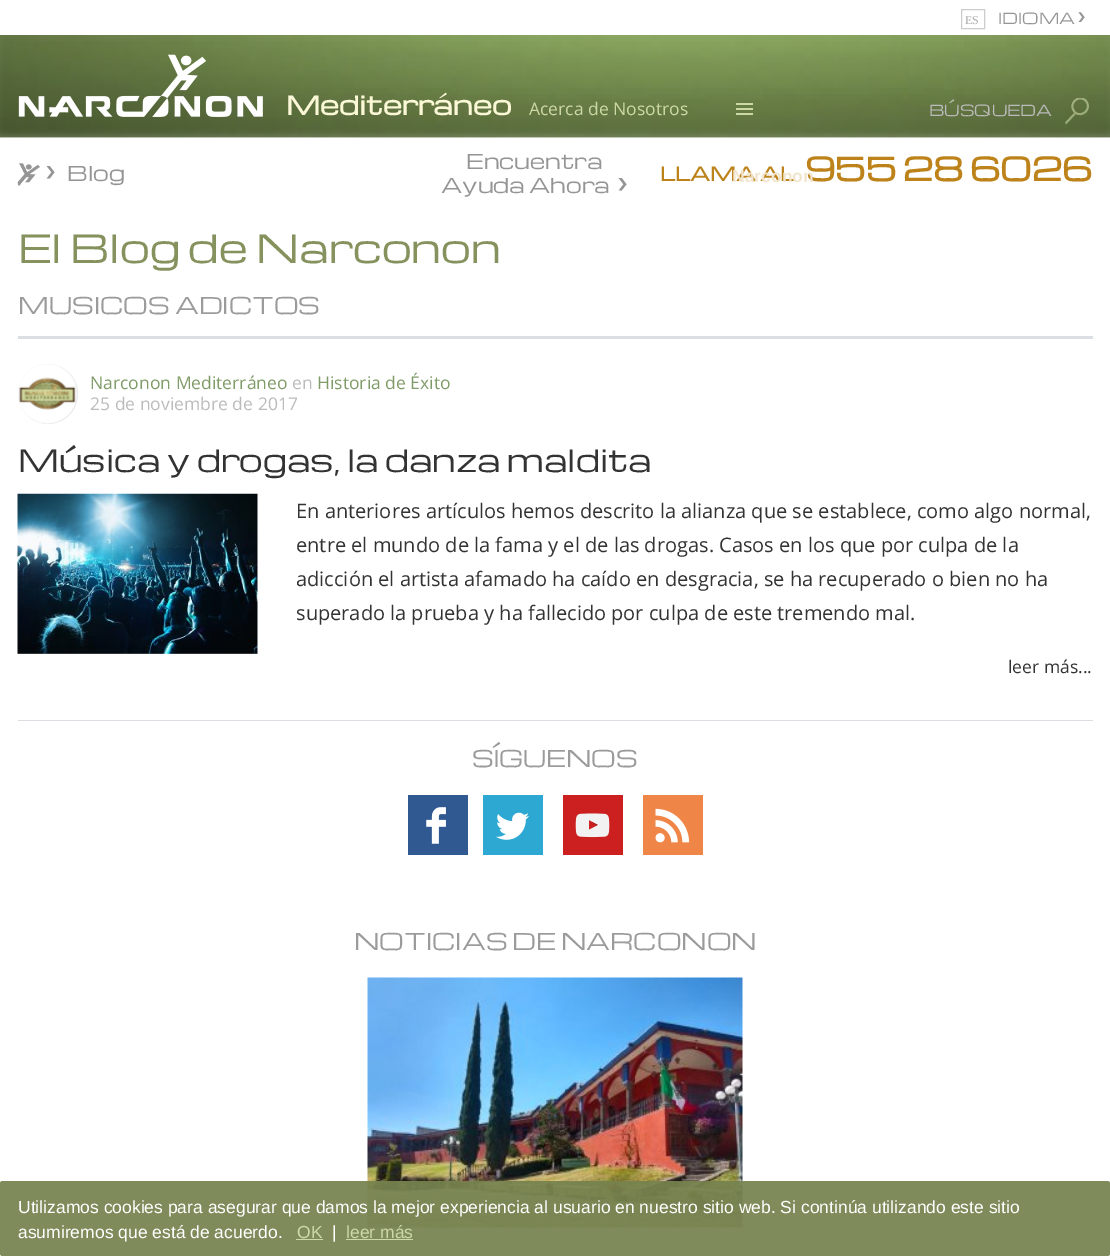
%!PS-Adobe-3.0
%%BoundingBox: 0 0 1110 1256
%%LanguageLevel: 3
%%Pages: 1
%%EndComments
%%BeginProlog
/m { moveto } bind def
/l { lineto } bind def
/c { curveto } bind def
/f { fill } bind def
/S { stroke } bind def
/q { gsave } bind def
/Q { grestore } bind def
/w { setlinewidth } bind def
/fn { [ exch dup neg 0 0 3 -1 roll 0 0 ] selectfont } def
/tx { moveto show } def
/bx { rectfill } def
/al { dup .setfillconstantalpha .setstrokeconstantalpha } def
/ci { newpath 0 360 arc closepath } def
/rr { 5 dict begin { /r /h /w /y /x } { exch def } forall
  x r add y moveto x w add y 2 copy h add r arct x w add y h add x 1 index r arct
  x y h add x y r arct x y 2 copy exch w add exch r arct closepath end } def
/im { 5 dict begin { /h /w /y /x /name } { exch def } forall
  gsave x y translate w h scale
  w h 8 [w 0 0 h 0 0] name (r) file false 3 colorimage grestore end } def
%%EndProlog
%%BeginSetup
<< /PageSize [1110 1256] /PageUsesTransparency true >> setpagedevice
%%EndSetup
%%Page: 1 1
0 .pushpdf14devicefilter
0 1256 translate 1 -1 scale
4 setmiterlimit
1 setgray
0 0 1110 1256 bx
(image0.raw) 0 35 1110 103 im
0.8 setgray
961.5 9.5 23 19 rectstroke
/LiberationSerif-Regular 12 fn
0.667 setgray
(ES) 965 24 tx
/Michroma-Regular 15 fn
0.584 setgray
(IDIOMA) 998 24 tx
/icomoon-Regular 14 fn
(❯) 1078 24 tx
(image1.raw) 18 54 245 63 im
/Michroma-Bold 25 fn
0.98 0.973 0.839 setrgbcolor
(Mediterráneo) 286 115 tx
/OpenSans-Regular 17.5 fn
0.8 0.847 0.651 setrgbcolor
(Acerca de Nosotros) 529 115 tx
/Michroma-Regular 15 fn
0.733 setgray
(BÚSQUEDA) 929 116 tx
q
1064 98 25 25 rectclip
0.6 al
0.8 0.847 0.651 setrgbcolor
1.8 w
1 setlinecap
1074.5 111.5 m 1067.5 104.5 1078.5 93.5 1085.5 100.5 c 1093 108 1082 119 1074.5 112 c S
Q
0.62 0.678 0.482 setrgbcolor
1.8 w
1 setlinecap
1074.5 114 m 1066 123 l S
0.8 0.847 0.651 setrgbcolor
736 103 17 2 bx
736 108 17 2 bx
736 113 17 2 bx
/Michroma-Bold 18.75 fn
0.741 0.514 0.102 setrgbcolor
(LLAMA AL) 660 181 tx
/Michroma-Bold 31.25 fn
(955 28 6026) 805 181 tx
/LiberationSans-Bold 17.5 fn
0.945 0.898 0.808 setrgbcolor
(Narconon) 732 182 tx
(image2.raw) 17 163 23 23 im
/icomoon-Regular 18 fn
0.584 setgray
(❯) 46 181 tx
/Michroma-Regular 20 fn
(Blog) 67 181 tx
(Encuentra) 466 169 tx
(Ayuda Ahora) 441 193 tx
/icomoon-Regular 18 fn
(❯) 618 193 tx
/Michroma-Regular 38 fn
0.522 0.573 0.365 setrgbcolor
(El Blog de Narconon) 18 263 tx
0.859 0.875 0.894 setrgbcolor
18 336 1075 3 bx
/Michroma-Regular 22.5 fn
0.608 setgray
(MUSICOS ADICTOS) 18 314 tx
0.859 0.875 0.894 setrgbcolor
18 720 1075 1 bx
0.839 setgray
48 394 30 ci f
(image3.raw) 18 364 60 60 im
/OpenSans-Regular 17.5 fn
0.498 0.608 0.408 setrgbcolor
(Narconon Mediterráneo) 90 389 tx
0.733 setgray
(en) 292 389 tx
0.498 0.608 0.408 setrgbcolor
(Historia de Éxito) 317 389 tx
0.733 setgray
(25 de noviembre de 2017) 90 410 tx
/Michroma-Regular 30 fn
0.2 setgray
(Música y drogas, la danza maldita) 18 472 tx
(image4.raw) 17 493 241 161 im
/OpenSans-Regular 20 fn
(En anteriores artículos hemos descrito la alianza que se establece, como algo normal,) 296 518 tx
(entre el mundo de la fama y el de las drogas. Casos en los que por culpa de la) 296 552 tx
(adicción el artista afamado ha caído en desgracia, se ha recuperado o bien no ha) 296 586 tx
(superado la prueba y ha fallecido por culpa de este tremendo mal.) 296 620 tx
/OpenSans-Regular 17.5 fn
(leer más...) 1008 673 tx
/Michroma-Regular 22.5 fn
0.608 setgray
(SÍGUENOS) 472 767 tx
0.188 0.345 0.569 setrgbcolor
408 795 60 60 bx
(image5.raw) 426 807 20 37 im
0.173 0.659 0.824 setrgbcolor
483 795 60 60 bx
(image6.raw) 496 812 33 28 im
0.8 0.122 0.122 setrgbcolor
563 795 60 60 bx
(image7.raw) 575 813 35 25 im
0.937 0.525 0.278 setrgbcolor
643 795 60 60 bx
(image8.raw) 655 808 35 35 im
0.608 setgray
(NOTICIAS DE NARCONON) 354 950 tx
(image9.raw) 367 977 376 251 im
0.93 al
0.459 0.51 0.302 setrgbcolor
0 1181 1110 75 2.5 rr f
/LiberationSans-Regular 17.5 fn
1 al
1 setgray
(Utilizamos cookies para asegurar que damos la mejor experiencia al usuario en nuestro sitio web. Si continúa utilizando este sitio) 18 1213 tx
(asumiremos que está de acuerdo.) 18 1238 tx
0.8 0.847 0.651 setrgbcolor
(OK) 297 1238 tx
296 1239 27 1 bx
1 setgray
(|) 332 1238 tx
0.8 0.847 0.651 setrgbcolor
(leer más) 346 1238 tx
346 1239 67 1 bx
.poppdf14devicefilter showpage
%%EOF
